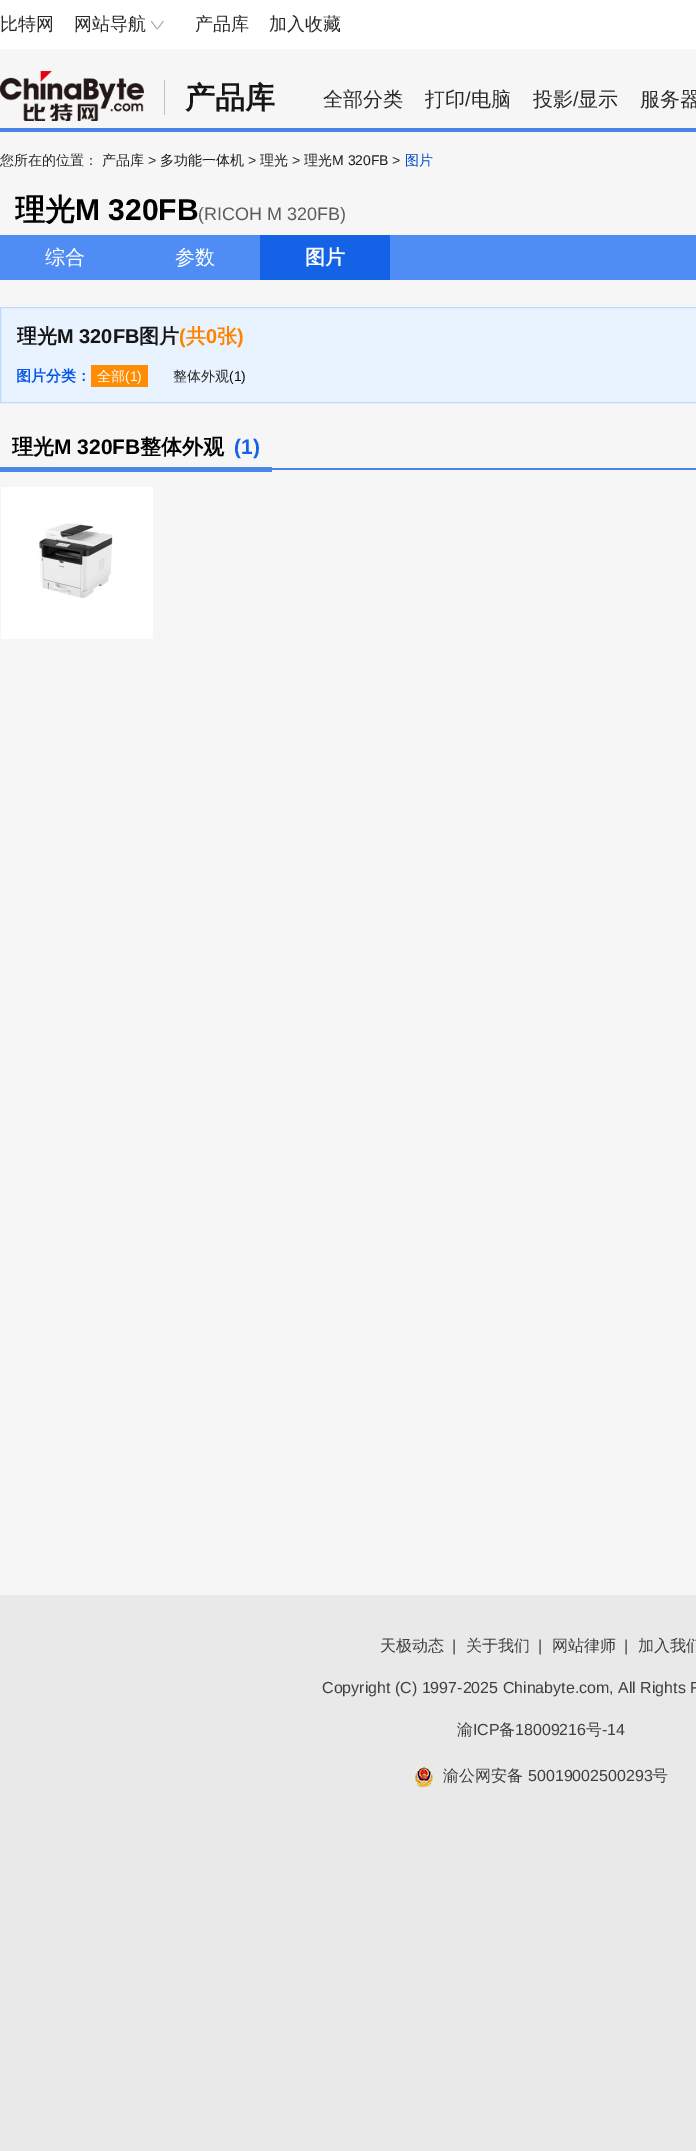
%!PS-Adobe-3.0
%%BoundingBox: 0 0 696 2151
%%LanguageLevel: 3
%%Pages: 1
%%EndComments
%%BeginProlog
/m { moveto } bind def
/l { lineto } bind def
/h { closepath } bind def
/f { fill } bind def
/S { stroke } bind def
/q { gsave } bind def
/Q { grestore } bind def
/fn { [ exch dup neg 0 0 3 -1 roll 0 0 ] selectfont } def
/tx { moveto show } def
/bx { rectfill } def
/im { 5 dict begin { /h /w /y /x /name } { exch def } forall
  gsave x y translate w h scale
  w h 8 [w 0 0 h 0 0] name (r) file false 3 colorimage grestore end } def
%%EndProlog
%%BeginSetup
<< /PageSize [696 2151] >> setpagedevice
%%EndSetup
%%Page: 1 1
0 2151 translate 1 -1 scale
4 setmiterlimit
0.914 setgray
0 0 696 2151 bx
1 setgray
0 0 696 49 bx
/WenQuanYiZenHei-Medium 18 fn
0.165 setgray
(比特网) 0 30 tx
(网站导航) 74 30 tx
(image0.raw) 151 21 13 9 im
(产品库) 195 30 tx
(加入收藏) 269 30 tx
0.965 setgray
0 49 696 1546 bx
0.282 0.518 0.91 setrgbcolor
0 128 696 4 bx
(image1.raw) 0 71 144 50 im
0.749 setgray
164 80 1 35 bx
/WenQuanYiZenHei-Bold 30 fn
0.086 setgray
(产品库) 185 108 tx
/WenQuanYiZenHei-Medium 20 fn
0.165 setgray
(全部分类) 323 106 tx
(打印) 425 106 tx
/LiberationSans-Regular 20 fn
(/) 465 106 tx
/WenQuanYiZenHei-Medium 20 fn
(电脑) 471 106 tx
(投影) 533 106 tx
/LiberationSans-Regular 20 fn
(/) 573 106 tx
/WenQuanYiZenHei-Medium 20 fn
(显示) 578 106 tx
(服务器) 640 106 tx
/WenQuanYiZenHei-Medium 14 fn
(您所在的位置：) 0 165 tx
0.11 setgray
(产品库) 102 165 tx
/LiberationSans-Regular 14 fn
0.165 setgray
(>) 148 165 tx
/WenQuanYiZenHei-Medium 14 fn
0.11 setgray
(多功能一体机) 160 165 tx
/LiberationSans-Regular 14 fn
0.165 setgray
(>) 248 165 tx
/WenQuanYiZenHei-Medium 14 fn
0.11 setgray
(理光) 260 165 tx
/LiberationSans-Regular 14 fn
0.165 setgray
(>) 292 165 tx
/WenQuanYiZenHei-Medium 14 fn
0.11 setgray
(理光) 304 165 tx
/LiberationSans-Regular 14 fn
(M 320FB) 332 165 tx
0.165 setgray
(>) 392 165 tx
/WenQuanYiZenHei-Medium 14 fn
0 0.298 0.792 setrgbcolor
(图片) 405 165 tx
/WenQuanYiZenHei-Bold 30 fn
0.004 setgray
(理光) 15 220 tx
/LiberationSans-Bold 30 fn
(M 320FB) 75 220 tx
/LiberationSans-Regular 18 fn
0.361 setgray
(\(RICOH M 320FB\)) 198 220 tx
0.31 0.553 0.961 setrgbcolor
0 235 696 45 bx
/WenQuanYiZenHei-Medium 20 fn
1 setgray
(综合) 45 264 tx
(参数) 175 264 tx
0.078 0.384 0.898 setrgbcolor
260 235 130 45 bx
/WenQuanYiZenHei-Bold 20 fn
1 setgray
(图片) 305 264 tx
0.914 0.953 1 setrgbcolor
0.5 307.5 m 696.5 307.5 l 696.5 402.5 l 0.5 402.5 l h q f Q
0.741 0.851 0.996 setrgbcolor
S
0.086 setgray
(理光) 17 343 tx
/LiberationSans-Bold 20 fn
(M 320FB) 57 343 tx
/WenQuanYiZenHei-Bold 20 fn
(图片) 139 343 tx
/LiberationSans-Bold 20 fn
1 0.514 0 setrgbcolor
(\() 179 343 tx
/WenQuanYiZenHei-Bold 20 fn
(共) 186 343 tx
/LiberationSans-Bold 20 fn
(0) 206 343 tx
/WenQuanYiZenHei-Bold 20 fn
(张) 217 343 tx
/LiberationSans-Bold 20 fn
(\)) 237 343 tx
/WenQuanYiZenHei-Bold 15 fn
0.02 0.337 0.918 setrgbcolor
(图片分类：) 16 381 tx
1 0.549 0.012 setrgbcolor
91 365 57 22 bx
/WenQuanYiZenHei-Medium 14 fn
1 setgray
(全部) 97 381 tx
/LiberationSans-Regular 14 fn
(\(1\)) 125 381 tx
/WenQuanYiZenHei-Medium 14 fn
0.165 setgray
(整体外观) 173 381 tx
/LiberationSans-Regular 14 fn
0.055 setgray
(\(1\)) 229 381 tx
0.294 0.529 0.918 setrgbcolor
272 468 424 2 bx
/WenQuanYiZenHei-Bold 21 fn
0.004 setgray
(理光) 12 454 tx
/LiberationSans-Bold 21 fn
(M 320FB) 54 454 tx
/WenQuanYiZenHei-Bold 21 fn
(整体外观) 140 454 tx
/LiberationSans-Bold 21 fn
0.078 0.384 0.898 setrgbcolor
(\(1\)) 234 454 tx
0.294 0.529 0.918 setrgbcolor
0 467 272 5 bx
1 setgray
1 487 152 152 bx
(image2.raw) 39 523 74 75 im
/WenQuanYiZenHei-Medium 16 fn
0.251 setgray
(天极动态) 380 1651 tx
/LiberationSans-Regular 16 fn
(|) 452 1651 tx
/WenQuanYiZenHei-Medium 16 fn
(关于我们) 466 1651 tx
/LiberationSans-Regular 16 fn
(|) 538 1651 tx
/WenQuanYiZenHei-Medium 16 fn
(网站律师) 552 1651 tx
/LiberationSans-Regular 16 fn
(|) 624 1651 tx
/WenQuanYiZenHei-Medium 16 fn
(加入我们) 638 1651 tx
/LiberationSans-Regular 16 fn
(Copyright \(C\) 1997-2025 Chinabyte.com, All Rights R) 322 1693 tx
/WenQuanYiZenHei-Medium 16 fn
(渝) 457 1735 tx
/LiberationSans-Regular 16 fn
(ICP) 473 1735 tx
/WenQuanYiZenHei-Medium 16 fn
(备) 499 1735 tx
/LiberationSans-Regular 16 fn
(18009216) 515 1735 tx
/WenQuanYiZenHei-Medium 16 fn
(号) 586 1735 tx
/LiberationSans-Regular 16 fn
(-14) 602 1735 tx
(image3.raw) 415 1767 18 20 im
/WenQuanYiZenHei-Medium 16 fn
(渝公网安备) 443 1781 tx
/LiberationSans-Regular 16 fn
(50019002500293) 528 1781 tx
/WenQuanYiZenHei-Medium 16 fn
(号) 652 1781 tx
showpage
%%EOF
